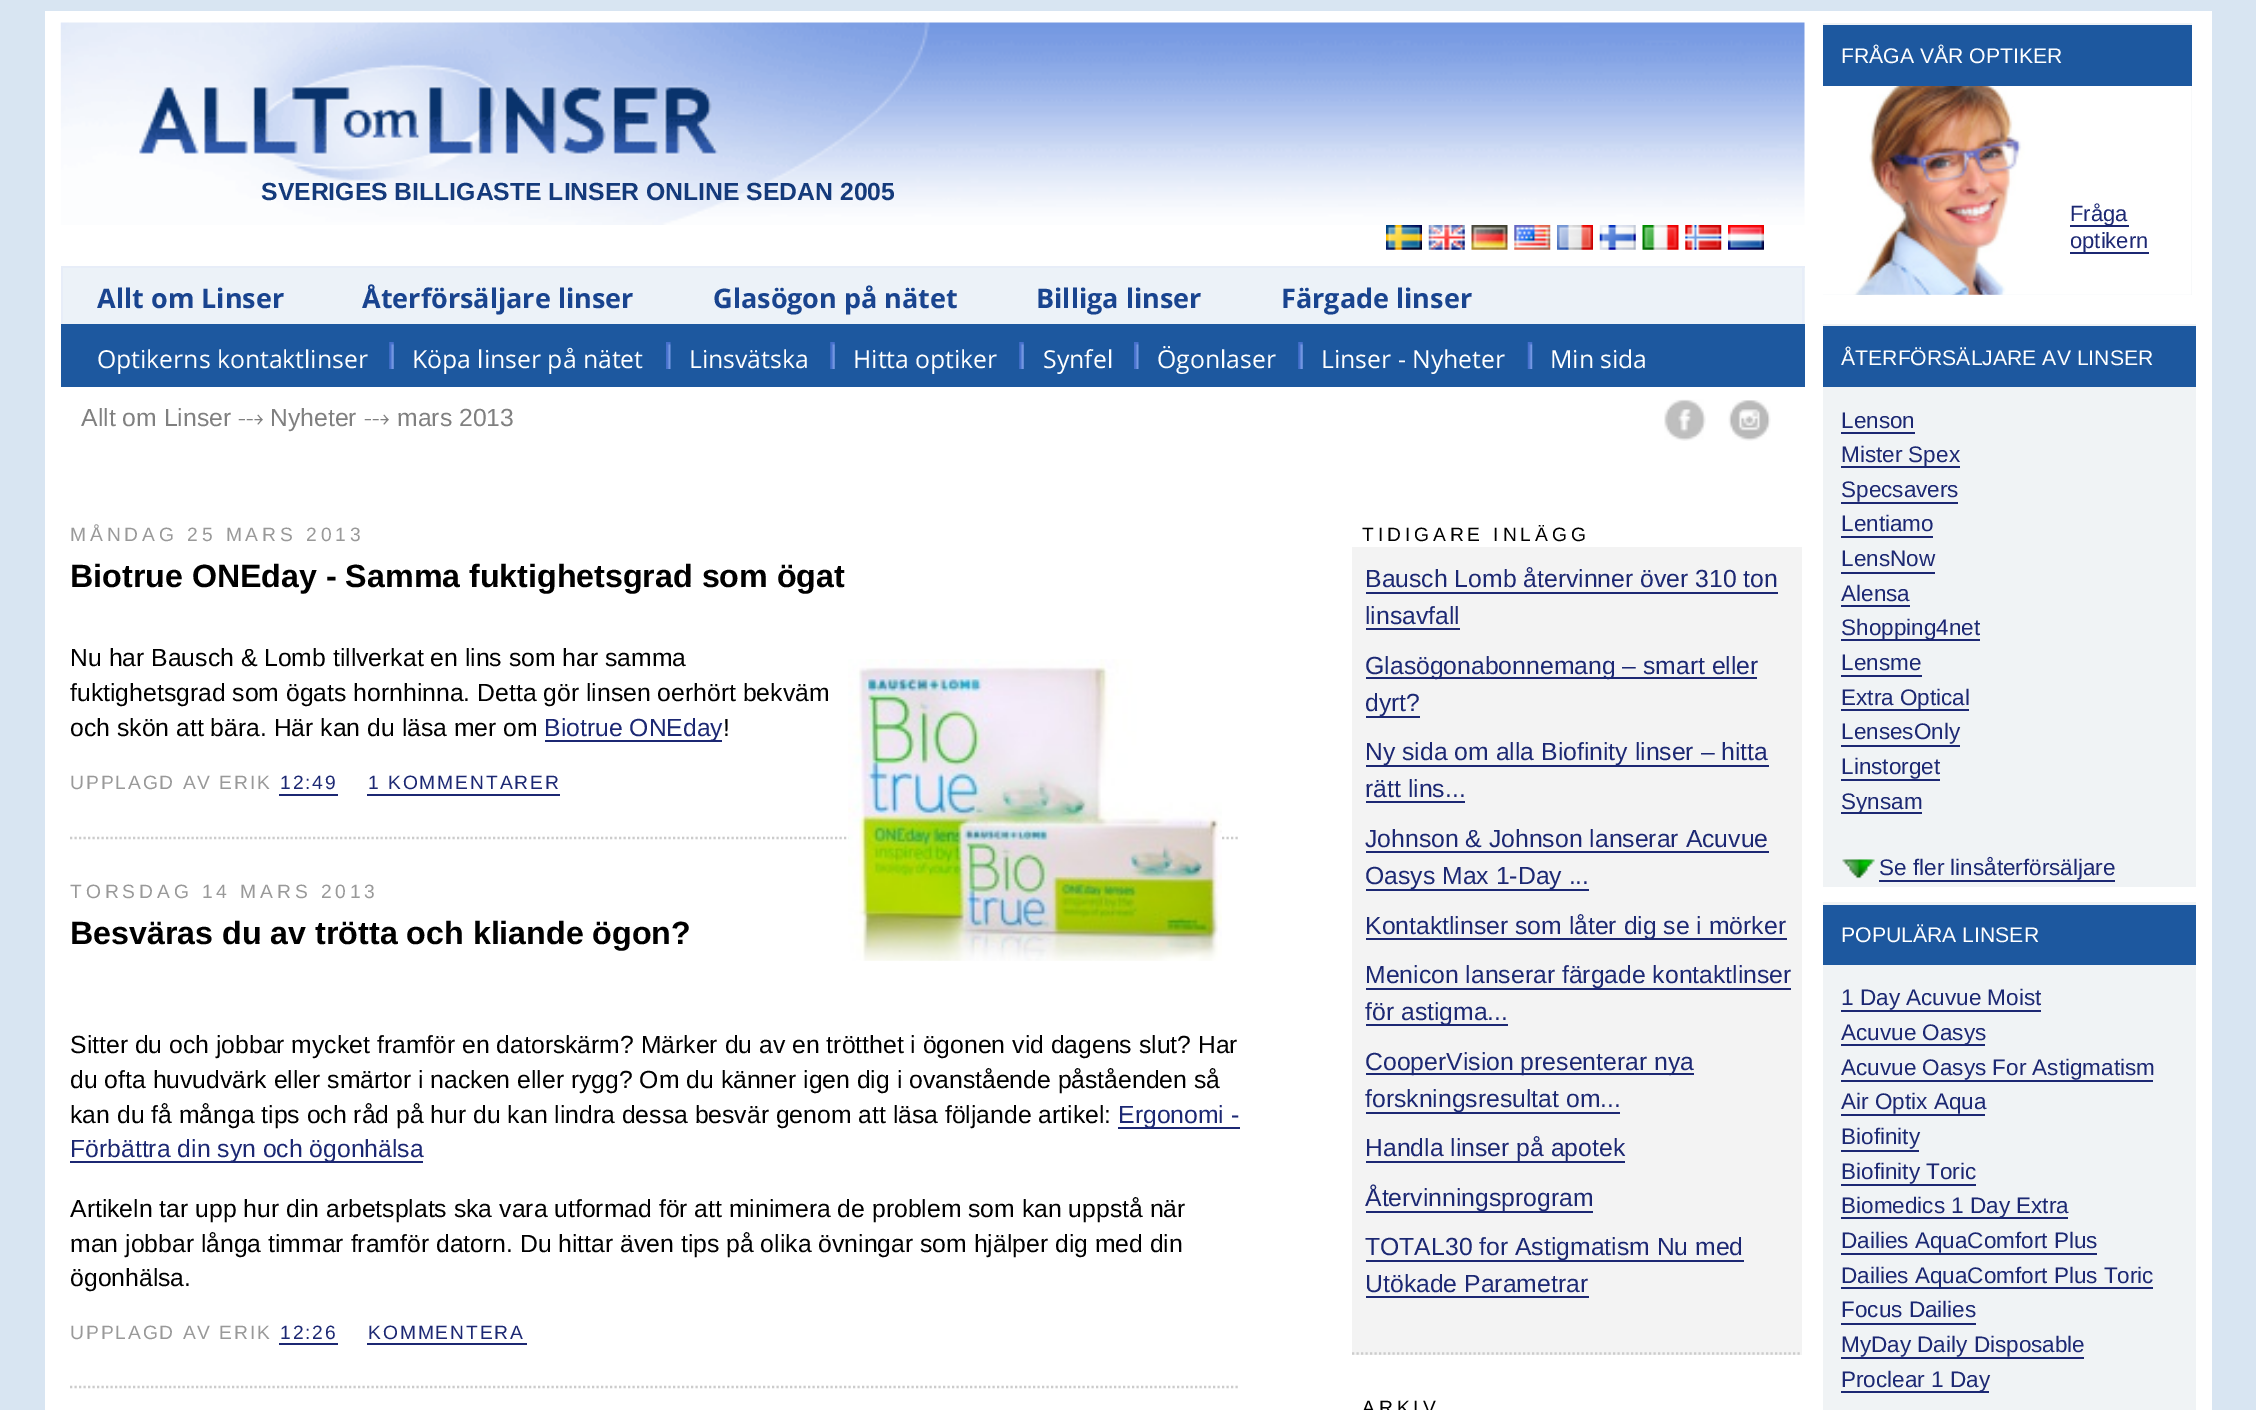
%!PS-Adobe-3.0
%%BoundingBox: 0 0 2256 1410
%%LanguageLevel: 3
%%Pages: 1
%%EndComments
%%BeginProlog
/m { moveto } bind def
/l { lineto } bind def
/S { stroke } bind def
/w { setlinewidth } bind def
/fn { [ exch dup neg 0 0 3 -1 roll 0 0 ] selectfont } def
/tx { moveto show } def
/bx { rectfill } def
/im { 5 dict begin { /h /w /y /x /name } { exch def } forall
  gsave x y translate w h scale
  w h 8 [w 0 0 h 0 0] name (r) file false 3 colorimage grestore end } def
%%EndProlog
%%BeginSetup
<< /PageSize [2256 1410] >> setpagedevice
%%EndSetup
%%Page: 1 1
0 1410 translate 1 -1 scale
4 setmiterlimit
0.847 0.898 0.949 setrgbcolor
0 0 2256 1410 bx
1 setgray
45 11 2167 1399 bx
(image0.raw) 60 22 1745 203 im
(image1.raw) 1386 225 36 25 im
(image2.raw) 1428 225 37 25 im
(image3.raw) 1471 225 37 25 im
(image4.raw) 1514 225 37 25 im
(image5.raw) 1557 225 36 25 im
(image6.raw) 1599 225 37 25 im
(image7.raw) 1642 225 37 25 im
(image8.raw) 1685 225 37 25 im
(image9.raw) 1728 225 36 25 im
0.941 0.953 0.961 setrgbcolor
1823 23 369 272 bx
0.114 0.345 0.624 setrgbcolor
1823 25 369 61 bx
/LiberationSans-Regular 21.2 fn
1 setgray
(FRÅGA VÅR OPTIKER) 1841 63 tx
(image10.raw) 1823 86 369 209 im
0.11 0.157 0.451 setrgbcolor
2070 225 59 2 bx
/LiberationSans-Regular 22 fn
(Fråga) 2070 221 tx
2070 252 79 2 bx
(optikern) 2070 248 tx
0.941 0.953 0.961 setrgbcolor
1823 324 373 563 bx
0.114 0.345 0.624 setrgbcolor
1823 326 373 61 bx
/LiberationSans-Regular 21.2 fn
1 setgray
(ÅTERFÖRSÄLJARE AV LINSER) 1841 365 tx
/LiberationSans-Regular 22.5 fn
0.11 0.157 0.451 setrgbcolor
(Lenson) 1841 428 tx
1841 432 74 2 bx
1841 466 119 2 bx
(Mister Spex) 1841 462 tx
(Specsavers) 1841 497 tx
1841 502 117 2 bx
(Lentiamo) 1841 531 tx
1841 536 92 2 bx
(LensNow) 1841 566 tx
1841 572 94 2 bx
(Alensa) 1841 601 tx
1841 605 69 2 bx
1841 639 139 2 bx
(Shopping4net) 1841 635 tx
(Lensme) 1841 670 tx
1841 675 81 2 bx
1841 709 128 2 bx
(Extra Optical) 1841 705 tx
(LensesOnly) 1841 739 tx
1841 745 119 2 bx
(Linstorget) 1841 774 tx
1841 779 99 2 bx
1841 812 81 2 bx
(Synsam) 1841 809 tx
(image11.raw) 1842 859 33 20 im
(Se fler linsåterförsäljare) 1879 875 tx
1879 880 236 2 bx
0.941 0.953 0.961 setrgbcolor
1823 902 373 508 bx
0.114 0.345 0.624 setrgbcolor
1823 905 373 60 bx
/LiberationSans-Regular 21.2 fn
1 setgray
(POPULÄRA LINSER) 1841 942 tx
/LiberationSans-Regular 22.5 fn
0.11 0.157 0.451 setrgbcolor
(1 Day Acuvue Moist) 1841 1005 tx
1841 1010 200 2 bx
1841 1044 144 2 bx
(Acuvue Oasys) 1841 1040 tx
(Acuvue Oasys For Astigmatism) 1841 1075 tx
1841 1080 312 2 bx
(Air Optix Aqua) 1841 1109 tx
1841 1114 144 2 bx
(Biofinity) 1841 1144 tx
1841 1150 78 2 bx
(Biofinity Toric) 1841 1179 tx
1841 1184 135 2 bx
1841 1217 227 2 bx
(Biomedics 1 Day Extra) 1841 1213 tx
(Dailies AquaComfort Plus) 1841 1248 tx
1841 1253 256 2 bx
1841 1287 312 2 bx
(Dailies AquaComfort Plus Toric) 1841 1283 tx
(Focus Dailies) 1841 1317 tx
1841 1323 135 2 bx
(MyDay Daily Disposable) 1841 1352 tx
1841 1357 243 2 bx
1841 1391 148 2 bx
(Proclear 1 Day) 1841 1387 tx
/LiberationSans-Bold 24.75 fn
0.078 0.227 0.482 setrgbcolor
(SVERIGES BILLIGASTE LINSER ONLINE SEDAN 2005) 261 200 tx
0.925 0.949 0.973 setrgbcolor
63 268 1742 56 bx
0.906 0.929 0.973 setrgbcolor
61 266 1744 2 bx
1802 266 2 58 bx
61 266 2 58 bx
/OpenSans-Bold 27 fn
0.098 0.267 0.561 setrgbcolor
(Allt om Linser) 97 308 tx
(Återförsäljare linser) 362 308 tx
(Glasögon på nätet) 713 308 tx
(Billiga linser) 1036 308 tx
(Färgade linser) 1281 308 tx
0.114 0.345 0.624 setrgbcolor
61 324 1744 63 bx
/OpenSans-Regular 24.75 fn
1 setgray
(Optikerns kontaktlinser) 97 368 tx
(image12.raw) 389 342 5 27 im
(Köpa linser på nätet) 412 368 tx
(image13.raw) 666 342 5 27 im
(Linsvätska) 689 368 tx
(image14.raw) 830 342 5 27 im
(Hitta optiker) 853 368 tx
(image12.raw) 1019 342 5 27 im
(Synfel) 1043 368 tx
(image13.raw) 1134 342 5 27 im
(Ögonlaser) 1157 368 tx
(image12.raw) 1298 342 5 27 im
(Linser - Nyheter) 1321 368 tx
(image15.raw) 1527 342 6 27 im
(Min sida) 1550 368 tx
/LiberationSans-Regular 24.75 fn
0.502 setgray
(Allt om Linser) 81 426 tx
/FreeSerif-Regular 24.75 fn
(⤏) 238 426 tx
/LiberationSans-Regular 24.75 fn
(Nyheter) 270 426 tx
/FreeSerif-Regular 24.75 fn
(⤏) 364 426 tx
/LiberationSans-Regular 24.75 fn
(mars 2013) 397 426 tx
(image16.raw) 1664 399 42 42 im
(image17.raw) 1728 400 43 41 im
/LiberationSans-Regular 19.25 fn
0.6 setgray
70 541 m 3.9 0 (MÅNDAG 25 MARS 2013) ashow
0.8 setgray
2.2 w
[2.25 2.25] 0 setdash
70 838 m 1240 838 l S
/LiberationSans-Bold 32.2 fn
0 setgray
(Biotrue ONEday - Samma fuktighetsgrad som ögat) 70 587 tx
/LiberationSans-Regular 24.75 fn
(Nu har Bausch & Lomb tillverkat en lins som har samma) 70 666 tx
(image18.raw) 848 659 374 302 im
(fuktighetsgrad som ögats hornhinna. Detta gör linsen oerhört bekväm) 70 701 tx
(och skön att bära. Här kan du läsa mer om) 70 736 tx
0.11 0.157 0.451 setrgbcolor
545 740 177 2 bx
(Biotrue ONEday) 544 736 tx
0 setgray
(!) 723 736 tx
/LiberationSans-Regular 19.25 fn
0.6 setgray
70 789 m 1.9 0 (UPPLAGD AV ERIK) ashow
0.11 0.157 0.451 setrgbcolor
280 789 m 1.9 0 (12:49) ashow
279 794 59 2 bx
368 789 m 1.9 0 (1 KOMMENTARER) ashow
367 794 193 2 bx
0.6 setgray
70 898 m 3.9 0 (TORSDAG 14 MARS 2013) ashow
0.8 setgray
70 1387 m 1240 1387 l S
/LiberationSans-Bold 32.2 fn
0 setgray
(Besväras du av trötta och kliande ögon?) 70 944 tx
/LiberationSans-Regular 24.75 fn
(Sitter du och jobbar mycket framför en datorskärm? Märker du av en trötthet i ögonen vid dagens slut? Har) 70 1053 tx
(du ofta huvudvärk eller smärtor i nacken eller rygg? Om du känner igen dig i ovanstående påståenden så) 70 1088 tx
(kan du få många tips och råd på hur du kan lindra dessa besvär genom att läsa följande artikel:) 70 1123 tx
0.11 0.157 0.451 setrgbcolor
1118 1127 122 2 bx
(Ergonomi -) 1118 1123 tx
70 1161 353 2 bx
(Förbättra din syn och ögonhälsa) 70 1157 tx
0 setgray
(Artikeln tar upp hur din arbetsplats ska vara utformad för att minimera de problem som kan uppstå när) 70 1217 tx
(man jobbar långa timmar framför datorn. Du hittar även tips på olika övningar som hjälper dig med din) 70 1252 tx
(ögonhälsa.) 70 1286 tx
/LiberationSans-Regular 19.25 fn
0.6 setgray
70 1339 m 1.9 0 (UPPLAGD AV ERIK) ashow
0.11 0.157 0.451 setrgbcolor
280 1339 m 1.9 0 (12:26) ashow
279 1343 59 2 bx
368 1339 m 1.9 0 (KOMMENTERA) ashow
367 1343 160 2 bx
0 setgray
1362 541 m 3.9 0 (TIDIGARE INLÄGG) ashow
0.953 setgray
1352 547 450 808 bx
0.8 setgray
1352 1353.5 m 1802 1353.5 l S
/LiberationSans-Regular 24.75 fn
0.11 0.157 0.451 setrgbcolor
(Bausch Lomb återvinner över 310 ton) 1365 587 tx
1366 592 412 2 bx
(linsavfall) 1365 624 tx
1366 628 94 2 bx
1366 677 391 2 bx
(Glasögonabonnemang – smart eller) 1365 674 tx
1366 716 54 2 bx
(dyrt?) 1365 711 tx
1366 765 403 2 bx
(Ny sida om alla Biofinity linser – hitta) 1365 760 tx
(rätt lins...) 1365 797 tx
1366 801 99 2 bx
(Johnson & Johnson lanserar Acuvue) 1365 847 tx
1366 851 403 2 bx
1366 889 223 2 bx
(Oasys Max 1-Day ...) 1365 884 tx
1366 938 421 2 bx
(Kontaktlinser som låter dig se i mörker) 1365 934 tx
1366 988 425 2 bx
(Menicon lanserar färgade kontaktlinser) 1365 983 tx
1366 1024 142 2 bx
(för astigma...) 1365 1020 tx
1366 1073 328 2 bx
(CooperVision presenterar nya) 1365 1070 tx
1366 1112 254 2 bx
(forskningsresultat om...) 1365 1107 tx
1366 1161 259 2 bx
(Handla linser på apotek) 1365 1156 tx
1366 1211 227 2 bx
(Återvinningsprogram) 1365 1206 tx
1366 1260 378 2 bx
(TOTAL30 for Astigmatism Nu med) 1365 1255 tx
(Utökade Parametrar) 1365 1292 tx
1366 1296 223 2 bx
/LiberationSans-Regular 19.25 fn
0 setgray
1362 1414 m 3.9 0 (ARKIV) ashow
showpage
%%EOF
